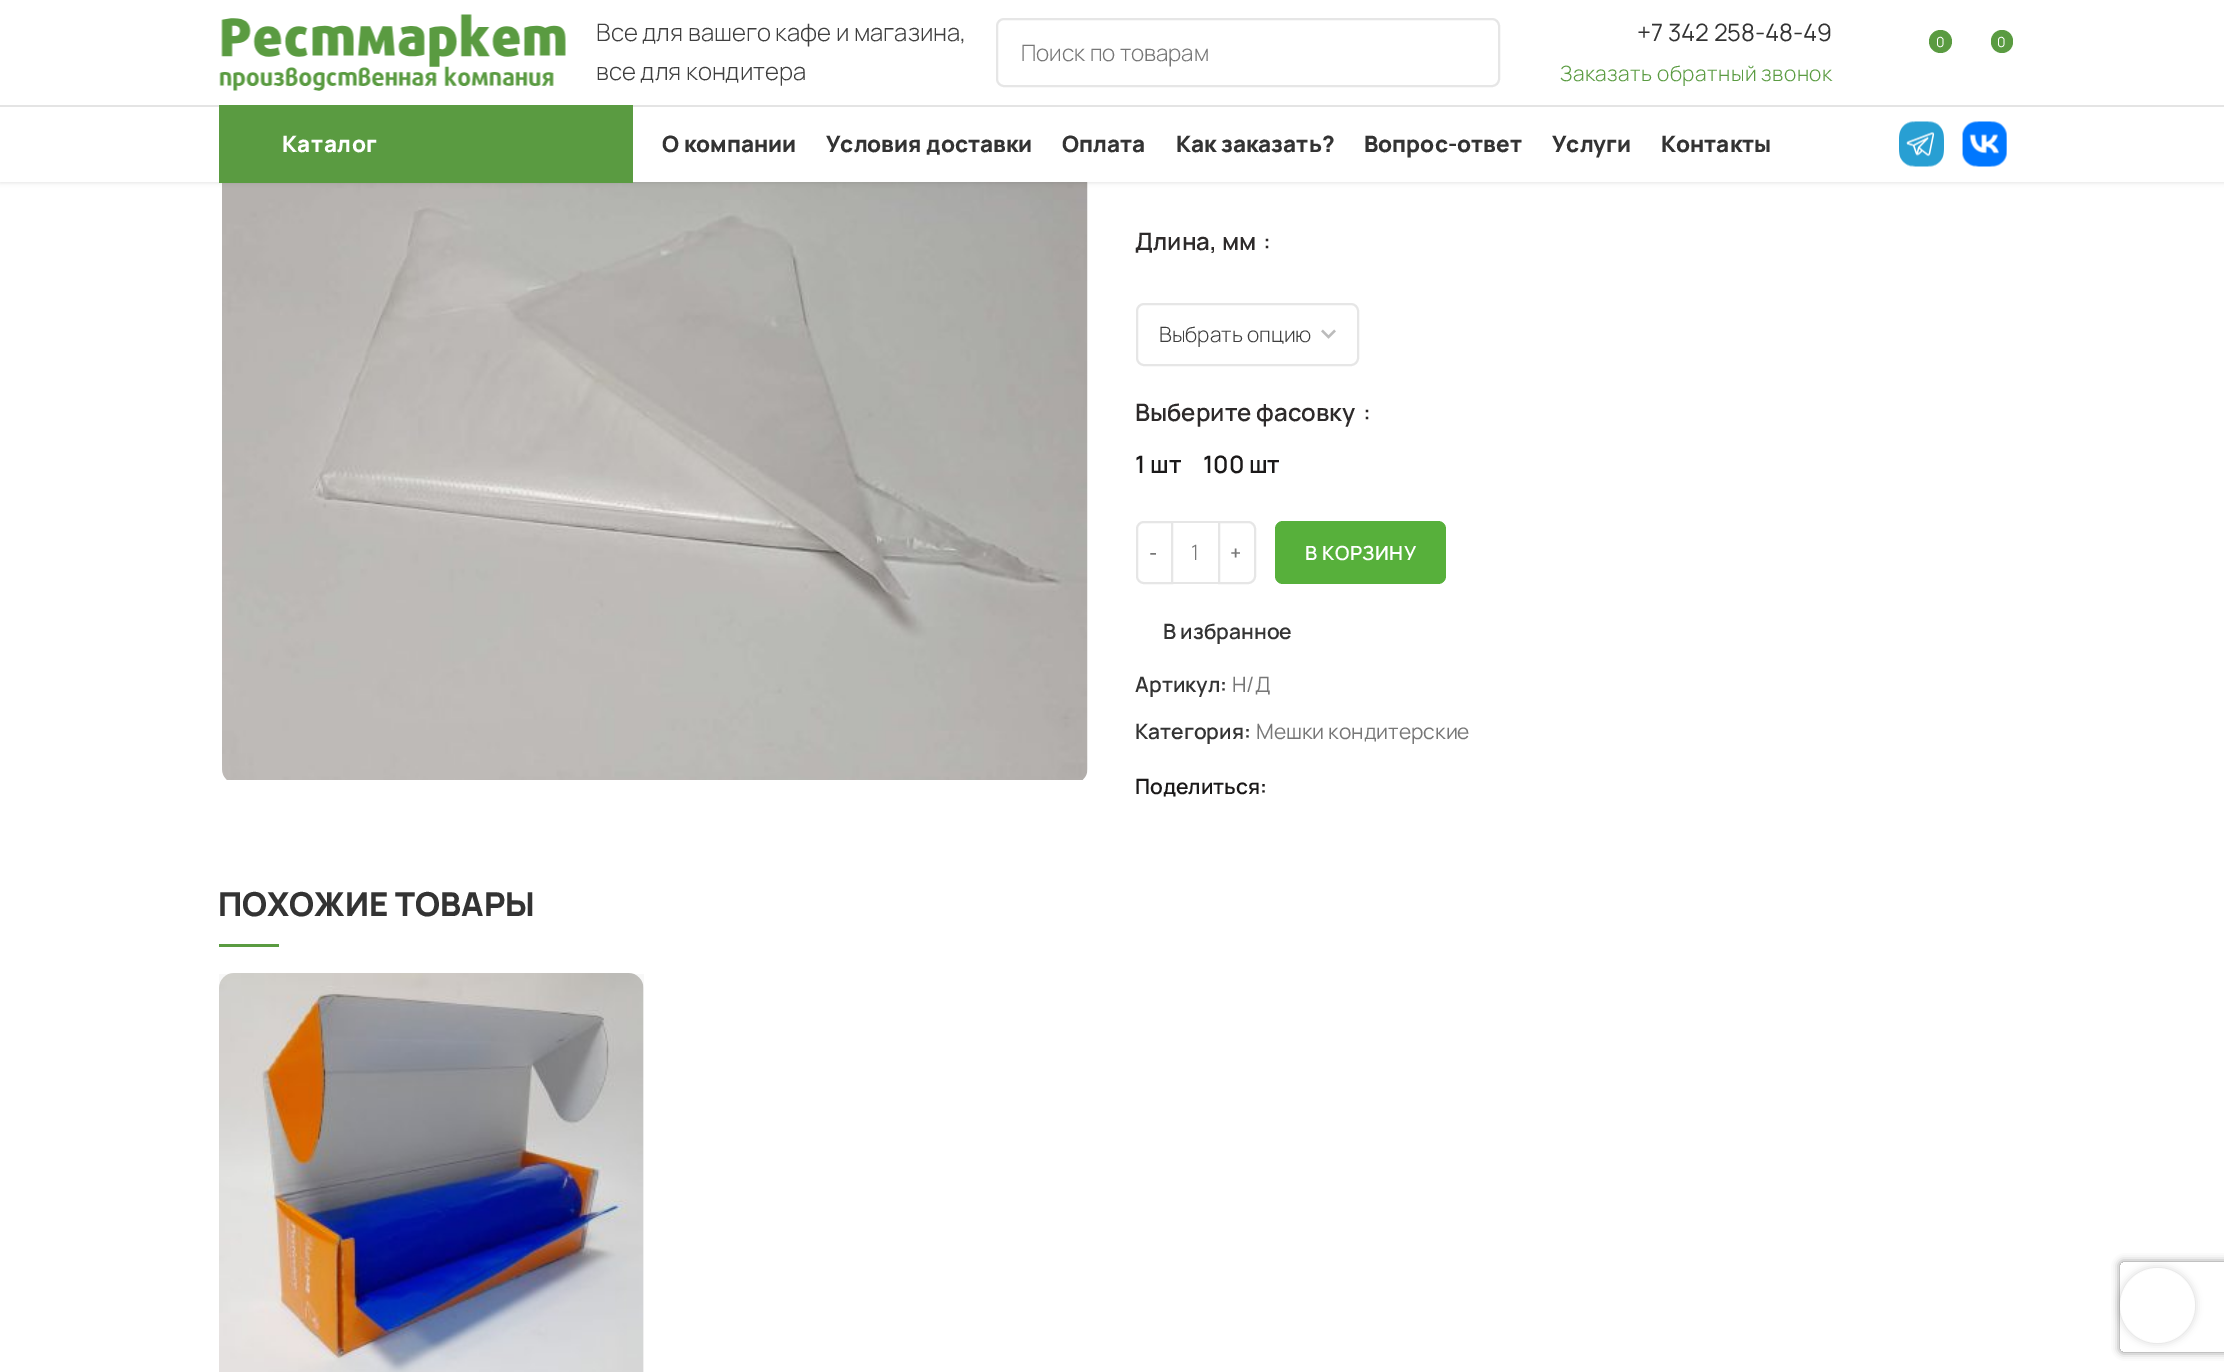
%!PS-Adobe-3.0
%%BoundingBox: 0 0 2224 1372
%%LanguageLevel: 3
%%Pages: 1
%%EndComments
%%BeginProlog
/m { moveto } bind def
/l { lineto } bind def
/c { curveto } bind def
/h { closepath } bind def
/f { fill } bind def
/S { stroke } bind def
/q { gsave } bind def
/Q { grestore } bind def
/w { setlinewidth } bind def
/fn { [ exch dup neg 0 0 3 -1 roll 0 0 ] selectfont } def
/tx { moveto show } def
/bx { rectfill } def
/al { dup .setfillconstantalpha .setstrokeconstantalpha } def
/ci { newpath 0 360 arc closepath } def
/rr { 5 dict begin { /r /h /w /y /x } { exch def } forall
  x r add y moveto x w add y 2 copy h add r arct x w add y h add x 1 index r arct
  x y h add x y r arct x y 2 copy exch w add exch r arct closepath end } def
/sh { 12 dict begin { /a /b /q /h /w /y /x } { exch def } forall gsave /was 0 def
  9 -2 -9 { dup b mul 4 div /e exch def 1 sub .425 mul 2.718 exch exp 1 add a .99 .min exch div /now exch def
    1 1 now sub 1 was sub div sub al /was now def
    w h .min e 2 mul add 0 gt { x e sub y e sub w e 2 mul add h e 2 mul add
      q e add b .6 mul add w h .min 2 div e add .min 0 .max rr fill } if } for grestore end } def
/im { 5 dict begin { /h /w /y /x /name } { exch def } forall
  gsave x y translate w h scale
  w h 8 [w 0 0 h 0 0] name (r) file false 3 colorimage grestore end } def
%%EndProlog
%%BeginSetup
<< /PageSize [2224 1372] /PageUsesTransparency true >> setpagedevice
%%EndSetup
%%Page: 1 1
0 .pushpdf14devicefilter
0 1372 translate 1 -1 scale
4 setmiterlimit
1 setgray
0 0 2224 1372 bx
(image3.raw) 222 182 866 598 im
0 setgray
0 2 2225 181 0 2 0.1 sh
1 setgray
0 0 2224 105 bx
0.894 setgray
0 105 2224 2 bx
(image0.raw) 219 14 347 77 im
/Manrope-Light 24 fn
0.247 setgray
(Все для вашего кафе и магазина,) 596 41 tx
(все для кондитера) 596 80 tx
0.902 setgray
2 w
997 19 502 67 7 rr S
/Manrope-Light 22.5 fn
0.467 setgray
(Поиск по товарам) 1021 61 tx
/Manrope-Regular 24 fn
0.2 setgray
(+7 342 258-48-49) 1637 41 tx
/Manrope-Light 21 fn
0.353 0.608 0.255 setrgbcolor
1560 81 m 0.45 0 (Заказать обратный звонок) ashow
1940.5 41.5 11.5 ci f
/Manrope-Regular 14 fn
1 setgray
(0) 1936 47 tx
0.353 0.608 0.255 setrgbcolor
1991 30 22 23 11 rr f
1 setgray
(0) 1997 47 tx
0 107 2224 75 bx
0.353 0.608 0.255 setrgbcolor
219 105 414 78 bx
/Manrope-ExtraBold 22.5 fn
1 setgray
282 152 m 0.5 0 (Каталог) ashow
0.2 setgray
(О компании) 662 152 tx
(Условия доставки) 826 152 tx
(Оплата) 1062 152 tx
(Как заказать?) 1176 152 tx
(Вопрос-ответ) 1364 152 tx
(Услуги) 1552 152 tx
(Контакты) 1661 152 tx
(image1.raw) 1899 121 45 46 im
(image2.raw) 1962 121 45 46 im
/Manrope-SemiBold 24 fn
0.176 0.165 0.165 setrgbcolor
(Длина, мм) 1135 250 tx
(:) 1263 250 tx
0.733 setgray
2.2 w
1322 330.5 m 1328.5 337 l 1335 330.5 l S
0.902 setgray
2 w
1137 304 221 61 7 rr S
/Manrope-Light 21 fn
0.247 setgray
(Выбрать опцию) 1159 342 tx
/Manrope-SemiBold 24 fn
0.176 0.165 0.165 setrgbcolor
(Выберите фасовку) 1135 421 tx
(:) 1363 421 tx
0.106 0.098 0.098 setrgbcolor
(1 шт) 1135 473 tx
(100 шт) 1203 473 tx
0.902 setgray
1144 522 m 1172 522 l 1172 583 l 1144 583 l 1140 583 1137 580 1137 576 c 1137 529 l 1137 525 1140 522 1144 522 c h S
/Manrope-SemiBold 19.5 fn
0.467 setgray
1149 560 m 0.45 0 (-) ashow
0.902 setgray
1173 521 45 2 bx
1173 582 45 2 bx
/Manrope-Light 21 fn
0.467 setgray
(1) 1191 560 tx
0.902 setgray
1219 522 m 1248 522 l 1252 522 1255 525 1255 529 c 1255 576 l 1255 580 1252 583 1248 583 c 1219 583 l h S
/Manrope-SemiBold 19.5 fn
0.467 setgray
1230 560 m 0.45 0 (+) ashow
0.341 0.69 0.231 setrgbcolor
1275 521 171 63 8 rr f
1 setgray
1305 560 m 0.45 0 (В КОРЗИНУ) ashow
/Manrope-SemiBold 21 fn
0.2 setgray
(В избранное) 1163 639 tx
(Артикул:) 1135 692 tx
/Manrope-Regular 21 fn
0.467 setgray
(Н/Д) 1232 692 tx
/Manrope-SemiBold 21 fn
0.2 setgray
(Категория:) 1135 739 tx
/Manrope-Regular 21 fn
0.467 setgray
(Мешки кондитерские) 1256 739 tx
/Manrope-SemiBold 21 fn
0.106 0.098 0.098 setrgbcolor
(Поделиться:) 1135 794 tx
/Manrope-ExtraBold 33 fn
0.2 setgray
(ПОХОЖИЕ ТОВАРЫ) 218 916 tx
0.353 0.608 0.255 setrgbcolor
219 944 60 3 bx
0.973 setgray
219 974 425 398 bx
(image4.raw) 219 973 425 399 im
q
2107 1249 m 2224 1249 l 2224 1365 l 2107 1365 l h 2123 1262 m 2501 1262 l 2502.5 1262 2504 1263.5 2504 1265 c 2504 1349 l 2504 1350.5 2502.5 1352 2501 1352 c 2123 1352 l 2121.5 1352 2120 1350.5 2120 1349 c 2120 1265 l 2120 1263.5 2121.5 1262 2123 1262 c h eoclip newpath
0.502 setgray
2120 1262 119 90 3 4 1 sh
Q
q
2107 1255 m 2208 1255 l 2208 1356 l 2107 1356 l h 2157.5 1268 m 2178 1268 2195 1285 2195 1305.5 c 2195 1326 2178 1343 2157.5 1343 c 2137 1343 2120 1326 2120 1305.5 c 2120 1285 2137 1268 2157.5 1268 c h eoclip newpath
0 setgray
2120 1268 75 75 37.5 4 0.17 sh
Q
0.9 al
1 setgray
2157.5 1305.5 37.5 ci f
.poppdf14devicefilter showpage
%%EOF
